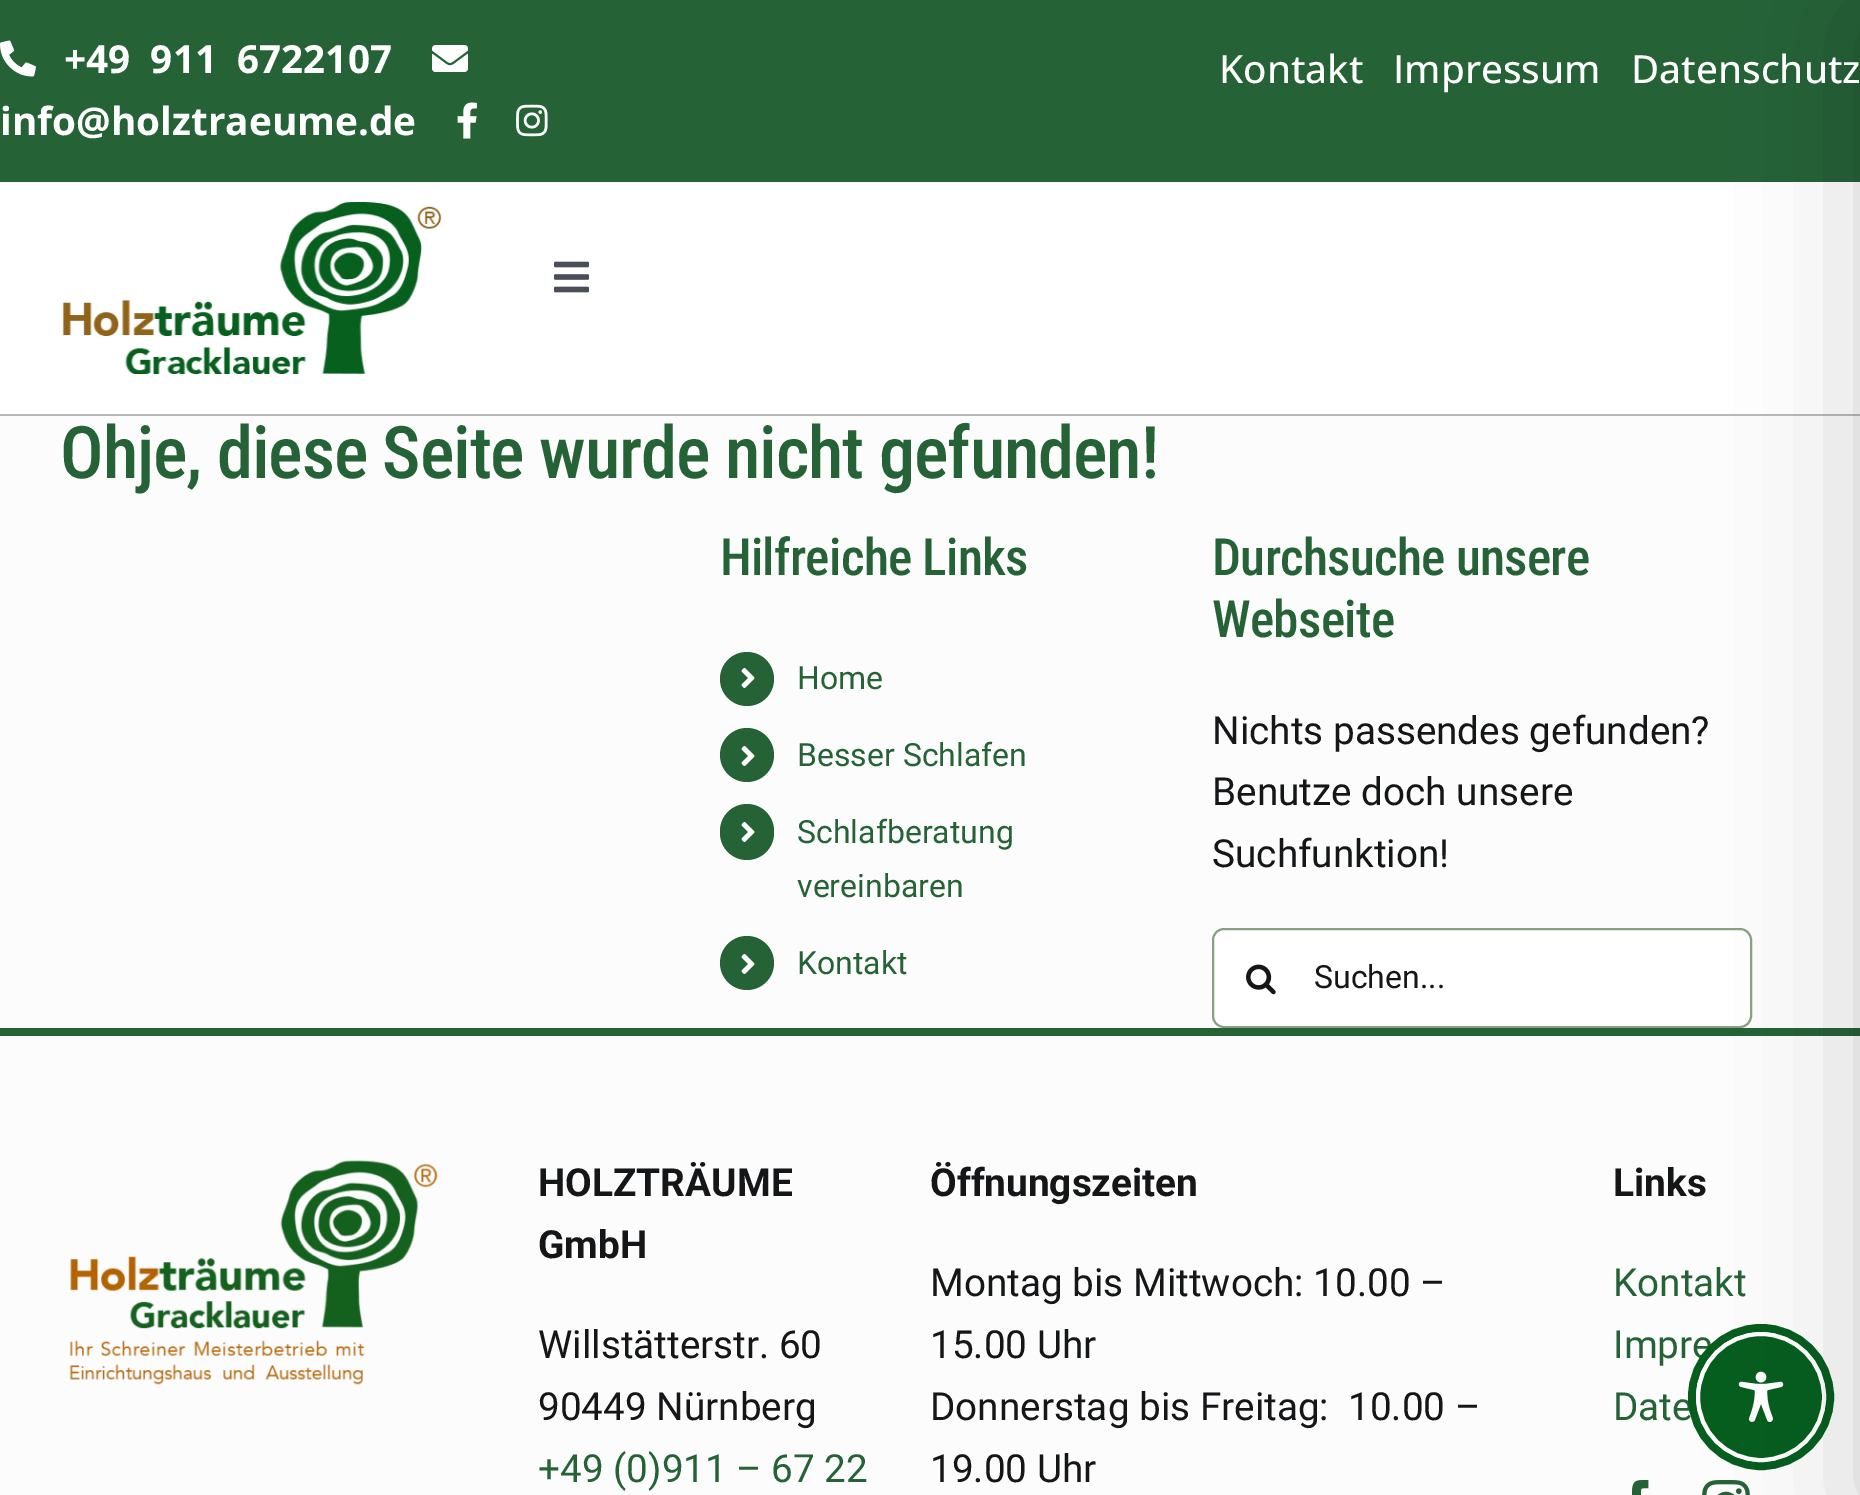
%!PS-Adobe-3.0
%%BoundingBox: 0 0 1860 1495
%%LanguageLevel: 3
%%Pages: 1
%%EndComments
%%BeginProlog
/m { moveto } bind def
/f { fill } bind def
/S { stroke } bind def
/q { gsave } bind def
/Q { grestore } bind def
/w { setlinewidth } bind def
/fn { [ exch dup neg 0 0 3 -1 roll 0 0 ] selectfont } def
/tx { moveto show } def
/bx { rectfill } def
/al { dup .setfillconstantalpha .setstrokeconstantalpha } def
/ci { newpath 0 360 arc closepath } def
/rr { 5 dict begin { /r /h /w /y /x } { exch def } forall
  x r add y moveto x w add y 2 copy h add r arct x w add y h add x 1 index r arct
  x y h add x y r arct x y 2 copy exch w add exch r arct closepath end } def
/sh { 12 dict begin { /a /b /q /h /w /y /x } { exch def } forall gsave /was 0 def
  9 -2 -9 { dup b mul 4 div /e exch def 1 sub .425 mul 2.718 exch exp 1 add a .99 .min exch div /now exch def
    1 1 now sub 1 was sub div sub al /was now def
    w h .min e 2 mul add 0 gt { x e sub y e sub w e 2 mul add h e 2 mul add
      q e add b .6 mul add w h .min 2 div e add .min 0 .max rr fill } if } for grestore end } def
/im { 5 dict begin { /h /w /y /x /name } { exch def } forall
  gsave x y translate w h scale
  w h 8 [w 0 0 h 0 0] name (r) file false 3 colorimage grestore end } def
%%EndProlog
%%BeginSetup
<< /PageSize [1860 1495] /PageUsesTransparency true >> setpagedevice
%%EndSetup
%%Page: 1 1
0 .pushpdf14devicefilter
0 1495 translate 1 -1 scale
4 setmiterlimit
0.988 setgray
0 0 1860 1495 bx
/Roboto-Regular 38.7 fn
0.145 0.388 0.216 setrgbcolor
(Impre) 1613 1358 tx
(Date) 1613 1420 tx
0.024 0.369 0.118 setrgbcolor
8 w
1761 1397 69 ci S
1761 1397 63 ci q f Q
1 setgray
4 w
S
(image0.raw) 1738 1371 46 52 im
0.145 0.388 0.216 setrgbcolor
0 0 1860 182 bx
1 setgray
0 182 1860 232 bx
0.722 0.722 0.729 setrgbcolor
0 414 1860 2 bx
1 setgray
1213 929 538 98 11 rr q f Q
0.545 0.627 0.514 setrgbcolor
2 w
S
0.145 0.388 0.216 setrgbcolor
0 1028 1860 8 bx
(image11.raw) 1702 1480 48 15 im
0 setgray
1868 20 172 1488 0 60 0.2 sh
(image1.raw) 0 40 36 37 im
/OpenSans-Bold 38.7 fn
1 setgray
(+49  911  6722107) 64 73 tx
(image2.raw) 432 45 36 27 im
(info@holztraeume.de) 0 135 tx
(image3.raw) 457 102 20 37 im
(image4.raw) 516 104 32 33 im
/OpenSans-Medium 38.7 fn
(Kontakt) 1219 83 tx
(Impressum) 1393 83 tx
(Datenschutz) 1631 83 tx
(image5.raw) 62 202 380 172 im
(image6.raw) 554 261 35 32 im
/RobotoCondensed-Medium 72.6 fn
0.145 0.388 0.216 setrgbcolor
60 478 m -1.1 0 (Ohje, diese Seite wurde nicht gefunden!) ashow
/RobotoCondensed-Medium 51.25 fn
720 575 m -0.75 0 (Hilfreiche Links) ashow
747 679 27 ci f
(image7.raw) 741 668 14 20 im
/Roboto-Regular 32 fn
(Home) 797 689 tx
747 755 27 ci f
(image7.raw) 741 746 14 20 im
(Besser Schlafen) 797 766 tx
720 804 54 56 27 rr f
(image7.raw) 741 822 14 20 im
(Schlafberatung) 797 843 tx
(vereinbaren) 797 897 tx
747 963 27 ci f
(image7.raw) 741 954 14 20 im
(Kontakt) 797 974 tx
/RobotoCondensed-Medium 51.25 fn
1212 575 m -0.75 0 (Durchsuche unsere) ashow
1212 637 m -0.75 0 (Webseite) ashow
/Roboto-Regular 38.7 fn
0.078 0.086 0.09 setrgbcolor
(Nichts passendes gefunden?) 1212 744 tx
(Benutze doch unsere) 1212 805 tx
(Suchfunktion!) 1212 867 tx
(image8.raw) 1246 964 30 31 im
/Roboto-Regular 32 fn
(Suchen...) 1314 988 tx
(image9.raw) 69 1160 369 225 im
/Roboto-Bold 38.7 fn
(HOLZTRÄUME) 538 1196 tx
(GmbH) 538 1258 tx
/Roboto-Regular 38.7 fn
(Willstätterstr. 60) 538 1358 tx
(90449 Nürnberg) 538 1420 tx
0.145 0.388 0.216 setrgbcolor
(+49 \(0\)911 – 67 22) 538 1482 tx
/Roboto-Bold 38.7 fn
0.078 0.086 0.09 setrgbcolor
(Öffnungszeiten) 930 1196 tx
/Roboto-Regular 38.7 fn
(Montag bis Mittwoch: 10.00 –) 930 1296 tx
(15.00 Uhr) 930 1358 tx
(Donnerstag bis Freitag:  10.00 –) 930 1420 tx
(19.00 Uhr) 930 1482 tx
/Roboto-Bold 38.7 fn
(Links) 1613 1196 tx
/Roboto-Regular 38.7 fn
0.145 0.388 0.216 setrgbcolor
(Kontakt) 1613 1296 tx
(image10.raw) 1632 1480 17 15 im
.poppdf14devicefilter showpage
%%EOF
